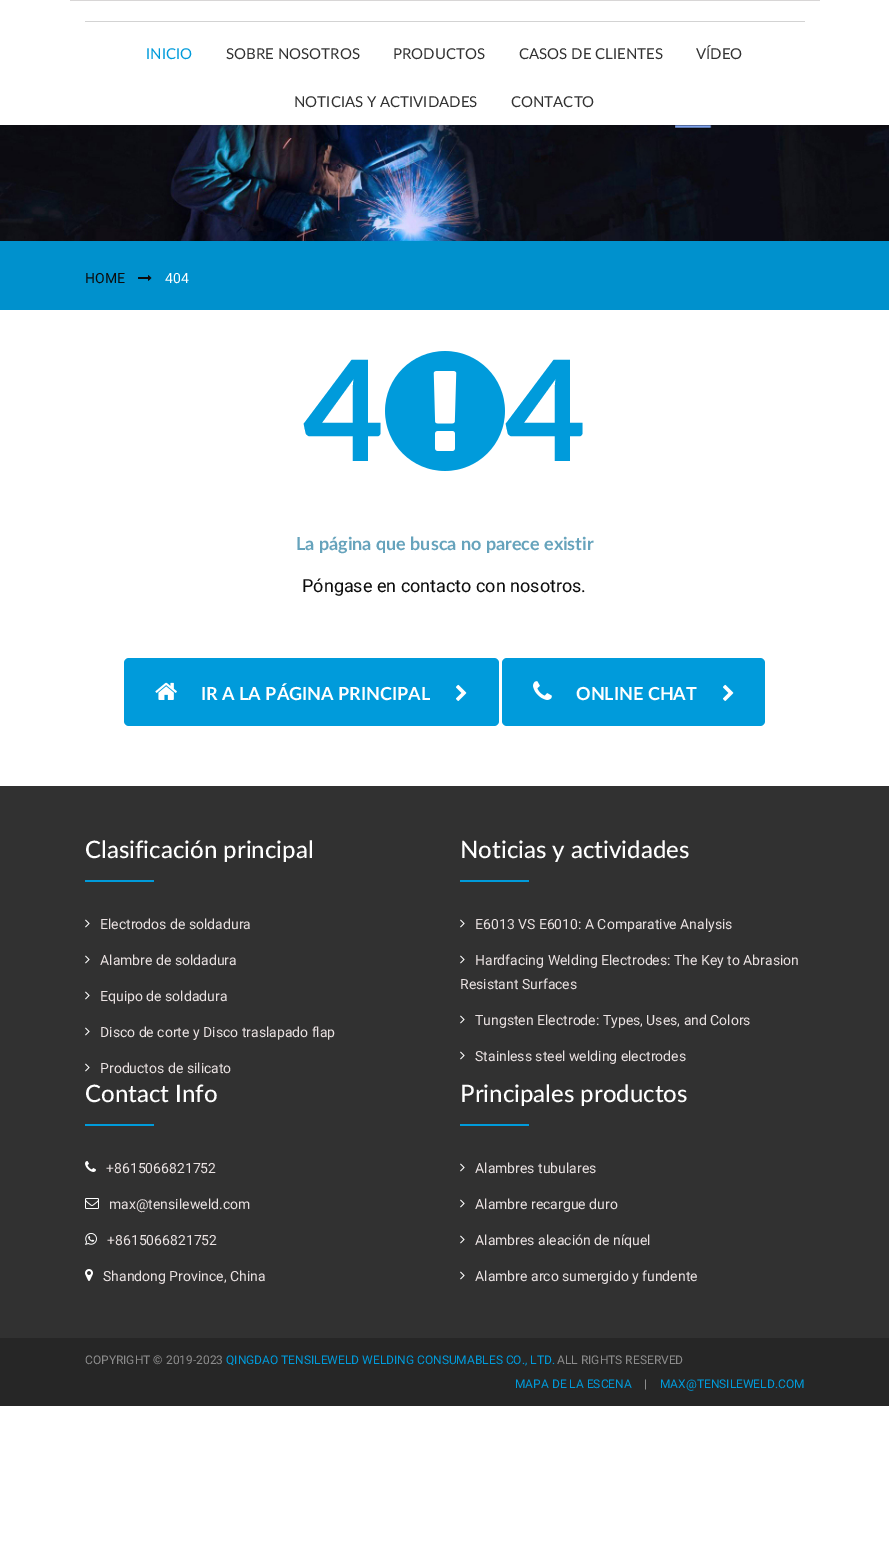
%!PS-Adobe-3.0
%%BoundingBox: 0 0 889 1547
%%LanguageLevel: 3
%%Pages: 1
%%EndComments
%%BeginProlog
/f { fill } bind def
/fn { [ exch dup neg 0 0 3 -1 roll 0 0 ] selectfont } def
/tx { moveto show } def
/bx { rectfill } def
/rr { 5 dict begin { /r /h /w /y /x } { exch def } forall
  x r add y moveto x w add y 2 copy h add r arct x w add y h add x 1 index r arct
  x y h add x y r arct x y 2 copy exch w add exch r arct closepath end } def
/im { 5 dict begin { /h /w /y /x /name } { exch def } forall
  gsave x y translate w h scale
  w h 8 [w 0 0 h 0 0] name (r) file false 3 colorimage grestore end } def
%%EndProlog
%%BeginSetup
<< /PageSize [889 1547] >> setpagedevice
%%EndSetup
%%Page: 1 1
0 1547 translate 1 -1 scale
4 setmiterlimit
1 setgray
0 0 889 1547 bx
0.847 0.839 0.839 setrgbcolor
70 0 750 1 bx
0.827 setgray
85 21 720 1 bx
/Lato-Regular 15 fn
0 0.608 0.859 setrgbcolor
(INICIO) 146 59 tx
0.192 setgray
(SOBRE NOSOTROS) 226 59 tx
(PRODUCTOS) 393 59 tx
(CASOS DE CLIENTES) 519 59 tx
(VÍDEO) 696 59 tx
(NOTICIAS Y ACTIVIDADES) 294 107 tx
(CONTACTO) 511 107 tx
(image0.raw) 0 125 889 116 im
0 0.569 0.804 setrgbcolor
0 241 889 69 bx
/Roboto-Regular 14 fn
0.047 setgray
(HOME) 85 283 tx
(image1.raw) 138 275 14 6 im
1 setgray
(404) 165 283 tx
/Lato-Bold 140 fn
0 0.608 0.859 setrgbcolor
(4) 303 461 tx
(image2.raw) 385 351 120 120 im
(4) 505 461 tx
/Lato-Bold 18 fn
0.4 0.639 0.737 setrgbcolor
(La página que busca no parece existir) 296 550 tx
/Roboto-Regular 18 fn
0.047 setgray
(Póngase en contacto con nosotros.) 302 592 tx
0 0.608 0.859 setrgbcolor
124 658 375 68 5 rr f
(image3.raw) 155 682 22 18 im
/Lato-Bold 18 fn
1 setgray
(IR A LA PÁGINA PRINCIPAL) 201 700 tx
(image4.raw) 456 684 11 17 im
0 0.608 0.859 setrgbcolor
502 658 263 68 5 rr f
(image5.raw) 533 681 19 19 im
1 setgray
(ONLINE CHAT) 576 700 tx
(image4.raw) 723 684 11 17 im
0.192 setgray
0 786 889 552 bx
/Lato-Medium 24 fn
1 setgray
(Clasificación principal) 85 858 tx
0 0.608 0.859 setrgbcolor
85 880 69 2 bx
(image6.raw) 85 919 5 9 im
/Roboto-Regular 14 fn
0.918 0.886 0.886 setrgbcolor
(Electrodos de soldadura) 100 929 tx
(image6.raw) 85 955 5 9 im
(Alambre de soldadura) 100 965 tx
(image6.raw) 85 991 5 9 im
(Equipo de soldadura) 100 1001 tx
(image6.raw) 85 1027 5 9 im
(Disco de corte y Disco traslapado flap) 100 1037 tx
(image6.raw) 85 1063 5 9 im
(Productos de silicato) 100 1073 tx
/Lato-Medium 24 fn
1 setgray
(Noticias y actividades) 460 858 tx
0 0.608 0.859 setrgbcolor
460 880 69 2 bx
(image6.raw) 460 919 5 9 im
/Roboto-Regular 14 fn
0.918 0.886 0.886 setrgbcolor
(E6013 VS E6010: A Comparative Analysis) 475 929 tx
(image6.raw) 460 955 5 9 im
(Hardfacing Welding Electrodes: The Key to Abrasion) 475 965 tx
(Resistant Surfaces) 460 989 tx
(image6.raw) 460 1015 5 9 im
(Tungsten Electrode: Types, Uses, and Colors) 475 1025 tx
(image6.raw) 460 1051 5 9 im
(Stainless steel welding electrodes) 475 1061 tx
/Lato-Medium 24 fn
1 setgray
(Contact Info) 85 1102 tx
0 0.608 0.859 setrgbcolor
85 1124 69 2 bx
(image7.raw) 85 1161 11 11 im
/Roboto-Regular 14 fn
0.918 0.886 0.886 setrgbcolor
(+8615066821752) 106 1173 tx
(image8.raw) 85 1198 14 11 im
(max@tensileweld.com) 109 1209 tx
(image9.raw) 85 1233 12 12 im
(+8615066821752) 107 1245 tx
(image10.raw) 85 1269 8 12 im
(Shandong Province, China) 103 1281 tx
/Lato-Medium 24 fn
1 setgray
(Principales productos) 460 1102 tx
0 0.608 0.859 setrgbcolor
460 1124 69 2 bx
(image6.raw) 460 1163 5 9 im
/Roboto-Regular 14 fn
0.918 0.886 0.886 setrgbcolor
(Alambres tubulares) 475 1173 tx
(image6.raw) 460 1199 5 9 im
(Alambre recargue duro) 475 1209 tx
(image6.raw) 460 1235 5 9 im
(Alambres aleación de níquel) 475 1245 tx
(image6.raw) 460 1271 5 9 im
(Alambre arco sumergido y fundente) 475 1281 tx
0.149 setgray
0 1338 889 68 bx
/Roboto-Regular 12 fn
0.553 setgray
(COPYRIGHT © 2019-2023) 85 1364 tx
0 0.608 0.859 setrgbcolor
(QINGDAO TENSILEWELD WELDING CONSUMABLES CO., LTD.) 226 1364 tx
0.553 setgray
(ALL RIGHTS RESERVED) 557 1364 tx
0 0.608 0.859 setrgbcolor
(MAPA DE LA ESCENA) 515 1388 tx
0.553 setgray
(|) 644 1388 tx
0 0.608 0.859 setrgbcolor
(MAX@TENSILEWELD.COM) 660 1388 tx
showpage
%%EOF
